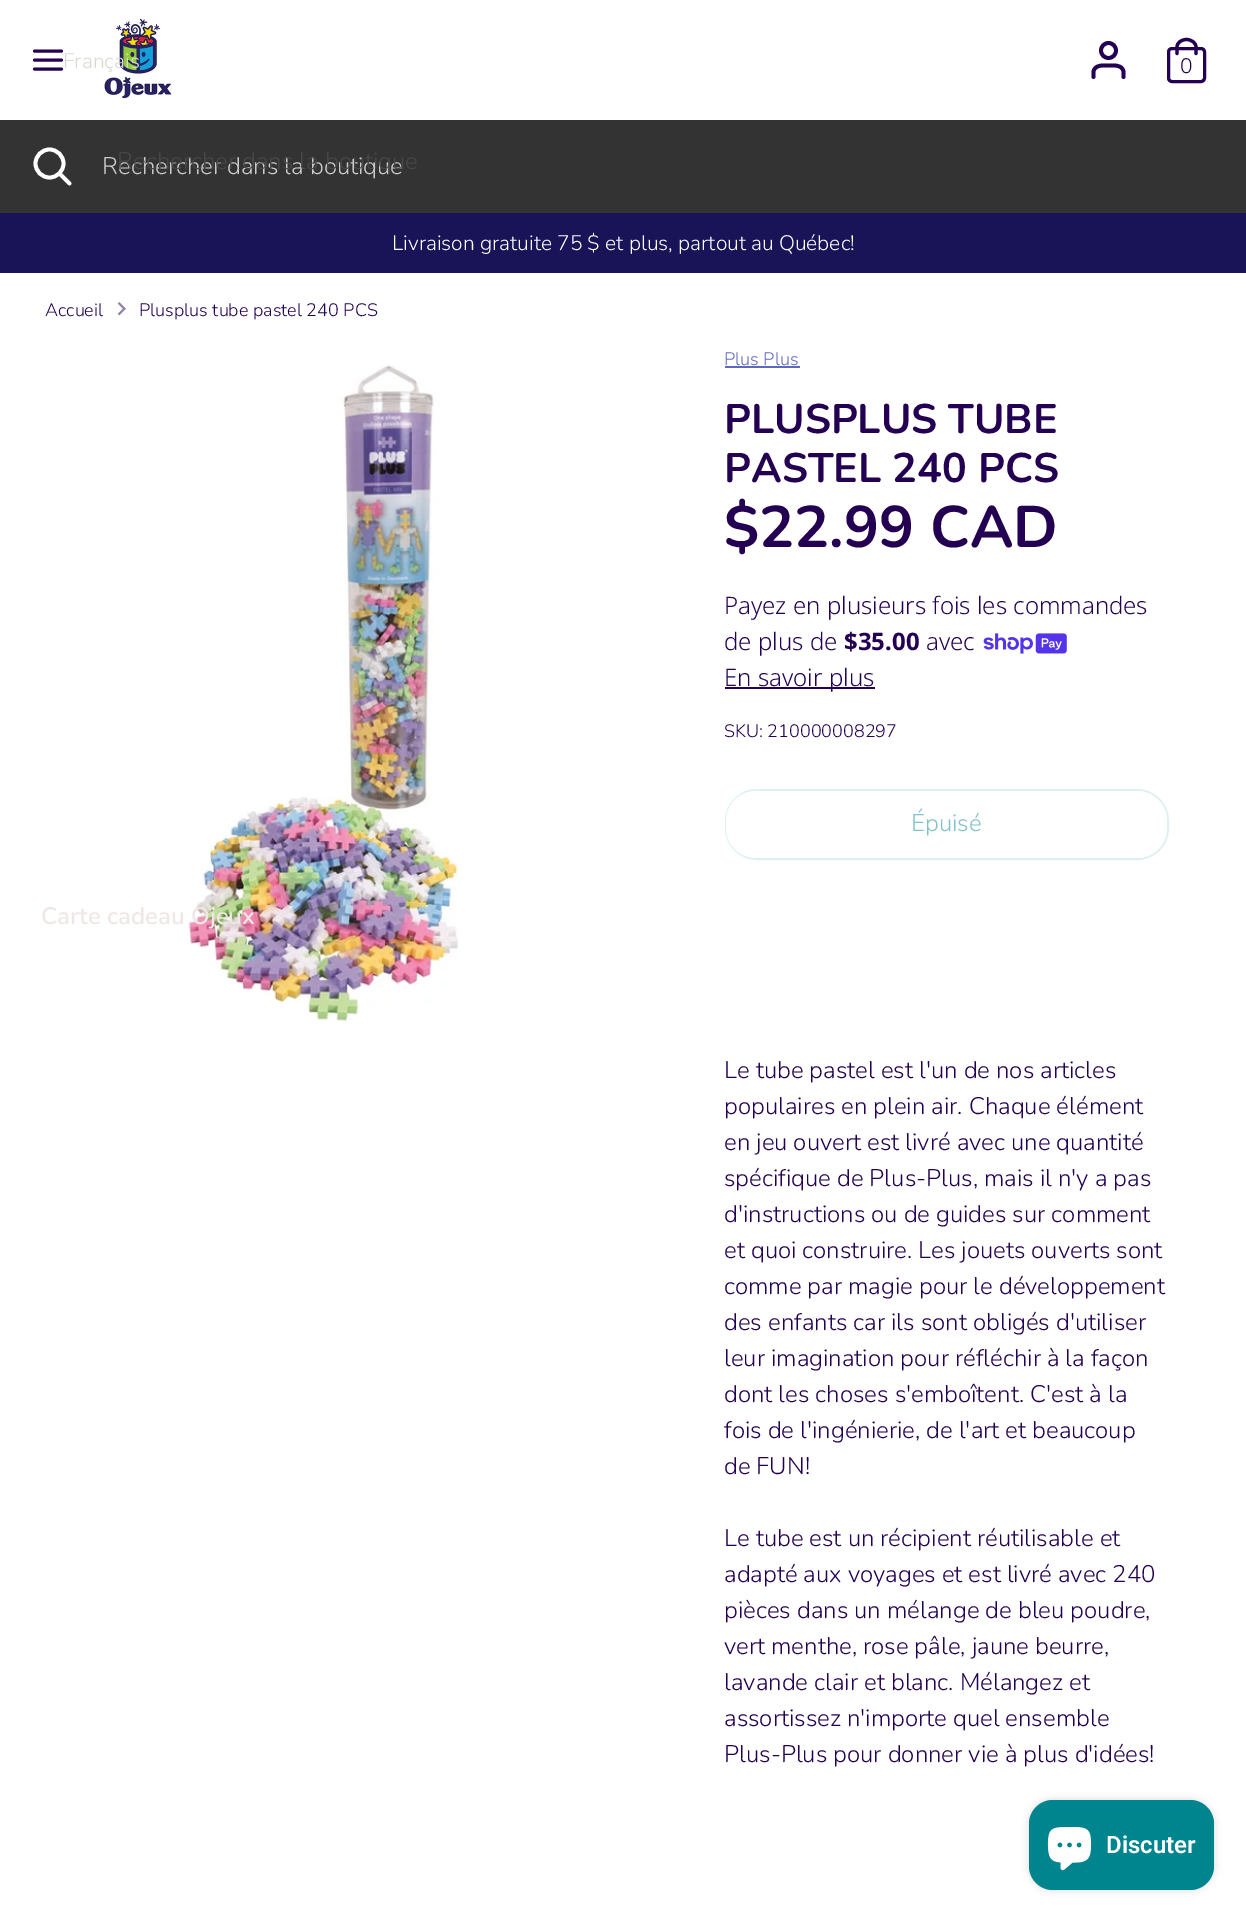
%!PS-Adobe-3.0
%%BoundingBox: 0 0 1246 1921
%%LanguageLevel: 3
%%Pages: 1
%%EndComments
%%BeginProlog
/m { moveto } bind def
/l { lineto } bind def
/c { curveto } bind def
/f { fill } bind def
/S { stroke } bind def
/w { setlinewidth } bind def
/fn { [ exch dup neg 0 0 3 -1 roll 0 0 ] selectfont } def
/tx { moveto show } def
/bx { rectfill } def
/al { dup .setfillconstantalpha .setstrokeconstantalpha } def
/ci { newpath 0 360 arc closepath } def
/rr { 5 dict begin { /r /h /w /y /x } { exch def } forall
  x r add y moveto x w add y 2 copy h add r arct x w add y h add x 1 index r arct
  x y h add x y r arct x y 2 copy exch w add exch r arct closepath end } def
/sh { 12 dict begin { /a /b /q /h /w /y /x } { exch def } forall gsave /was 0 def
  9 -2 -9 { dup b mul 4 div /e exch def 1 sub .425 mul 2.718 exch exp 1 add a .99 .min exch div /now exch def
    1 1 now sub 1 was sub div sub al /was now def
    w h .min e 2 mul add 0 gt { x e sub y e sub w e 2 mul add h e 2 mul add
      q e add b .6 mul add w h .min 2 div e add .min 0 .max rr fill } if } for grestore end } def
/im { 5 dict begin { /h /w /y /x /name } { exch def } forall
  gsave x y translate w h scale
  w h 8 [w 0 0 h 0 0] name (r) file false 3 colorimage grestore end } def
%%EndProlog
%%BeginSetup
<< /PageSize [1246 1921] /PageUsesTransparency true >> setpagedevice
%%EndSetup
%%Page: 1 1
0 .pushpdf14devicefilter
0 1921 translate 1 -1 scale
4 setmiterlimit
1 setgray
0 0 1246 1921 bx
(image0.raw) 104 18 68 81 im
/Nunito-Light 21 fn
0.835 0.863 0.812 setrgbcolor
(Français) 63 68 tx
0.2 setgray
0 120 1246 93 bx
/Nunito-Light 24 fn
0.8 setgray
(Rechercher dans la boutique) 102 174 tx
0.278 setgray
(Rechercher dans la boutique) 117 169 tx
(image2.raw) 188 365 271 657 im
/Nunito-SemiBold 24 fn
0.937 0.906 0.894 setrgbcolor
(Carte cadeau Ojeux) 41 924 tx
1 setgray
3.8 w
49.5 163.5 14 ci S
1 setlinecap
69.5 183.5 m 59.5 173.5 l S
0.098 0.078 0.341 setrgbcolor
0 213 1246 60 bx
/Nunito-Light 21 fn
1 setgray
(Livraison gratuite 75 $ et plus, partout au Québec!) 392 250 tx
0.137 0 0.318 setrgbcolor
3 w
34.5 60 m 61.5 60 l 34.5 51 m 61.5 51 l 34.5 69 m 61.5 69 l S
3.8 w
1123.5 77 m 1123.5 71.5 l 1122 64.5 1114 65.5 1108.5 65.5 c 1103 65.5 1095 64.5 1093.5 71.5 c 1093.5 77 l S
0 setlinecap
1108.5 50.5 7.5 ci S
3 w
1168.5 48.5 36 33 3.5 rr S
3.2 w
1 setlinecap
1177 53.5 m 1177 47 l 1177 43 1181 39.5 1186.5 39.5 c 1191.5 39.5 1196 43 1196 47 c 1196 53.5 l S
(0) 1180 73 tx
/Nunito-Light 18 fn
(Accueil) 45 316 tx
(image1.raw) 117 302 9 14 im
(Plusplus tube pastel 240 PCS) 139 316 tx
0.365 0.408 0.749 setrgbcolor
(Plus Plus) 724 365 tx
725 366 75 2 bx
/Nunito-Bold 41.25 fn
0.137 0 0.318 setrgbcolor
(PLUSPLUS TUBE) 724 433 tx
(PASTEL 240 PCS) 724 482 tx
/Nunito-Bold 58.5 fn
($22.99 CAD) 724 547 tx
/NotoSans-Light 24 fn
(Payez en plusieurs fois les commandes) 724 614 tx
(de plus de) 724 650 tx
/NotoSans-Bold 24 fn
($35.00) 844 650 tx
/NotoSans-Light 24 fn
(avec) 926 650 tx
(image3.raw) 983 633 84 21 im
725 687 150 2 bx
(En savoir plus) 724 686 tx
/Nunito-Light 18 fn
(SKU: 210000008297) 724 737 tx
0.875 0.941 0.945 setrgbcolor
2 w
0 setlinecap
726 790 442 69 31 rr S
1 setgray
726 791 441 67 30 rr f
/Nunito-Light 24 fn
0.502 0.761 0.78 setrgbcolor
(Épuisé) 911 831 tx
0.137 0 0.318 setrgbcolor
(Le tube pastel est l'un de nos articles) 724 1078 tx
(populaires en plein air. Chaque élément) 724 1114 tx
(en jeu ouvert est livré avec une quantité) 724 1150 tx
(spécifique de Plus-Plus, mais il n'y a pas) 724 1186 tx
(d'instructions ou de guides sur comment) 724 1222 tx
(et quoi construire. Les jouets ouverts sont) 724 1258 tx
(comme par magie pour le développement) 724 1294 tx
(des enfants car ils sont obligés d'utiliser) 724 1330 tx
(leur imagination pour réfléchir à la façon) 724 1366 tx
(dont les choses s'emboîtent. C'est à la) 724 1402 tx
(fois de l'ingénierie, de l'art et beaucoup) 724 1438 tx
(de FUN!) 724 1474 tx
(Le tube est un récipient réutilisable et) 724 1546 tx
(adapté aux voyages et est livré avec 240) 724 1582 tx
(pièces dans un mélange de bleu poudre,) 724 1618 tx
(vert menthe, rose pâle, jaune beurre,) 724 1654 tx
(lavande clair et blanc. Mélangez et) 724 1690 tx
(assortissez n'importe quel ensemble) 724 1726 tx
(Plus-Plus pour donner vie à plus d'idées!) 724 1762 tx
0 setgray
1029 1800 185 90 24 4 0.15 sh
0 0.518 0.557 setrgbcolor
1029 1800 185 90 24 rr f
(image4.raw) 1047 1827 45 44 im
/Roboto-SemiBold 24 fn
1 setgray
(Discuter) 1106 1853 tx
.poppdf14devicefilter showpage
%%EOF
